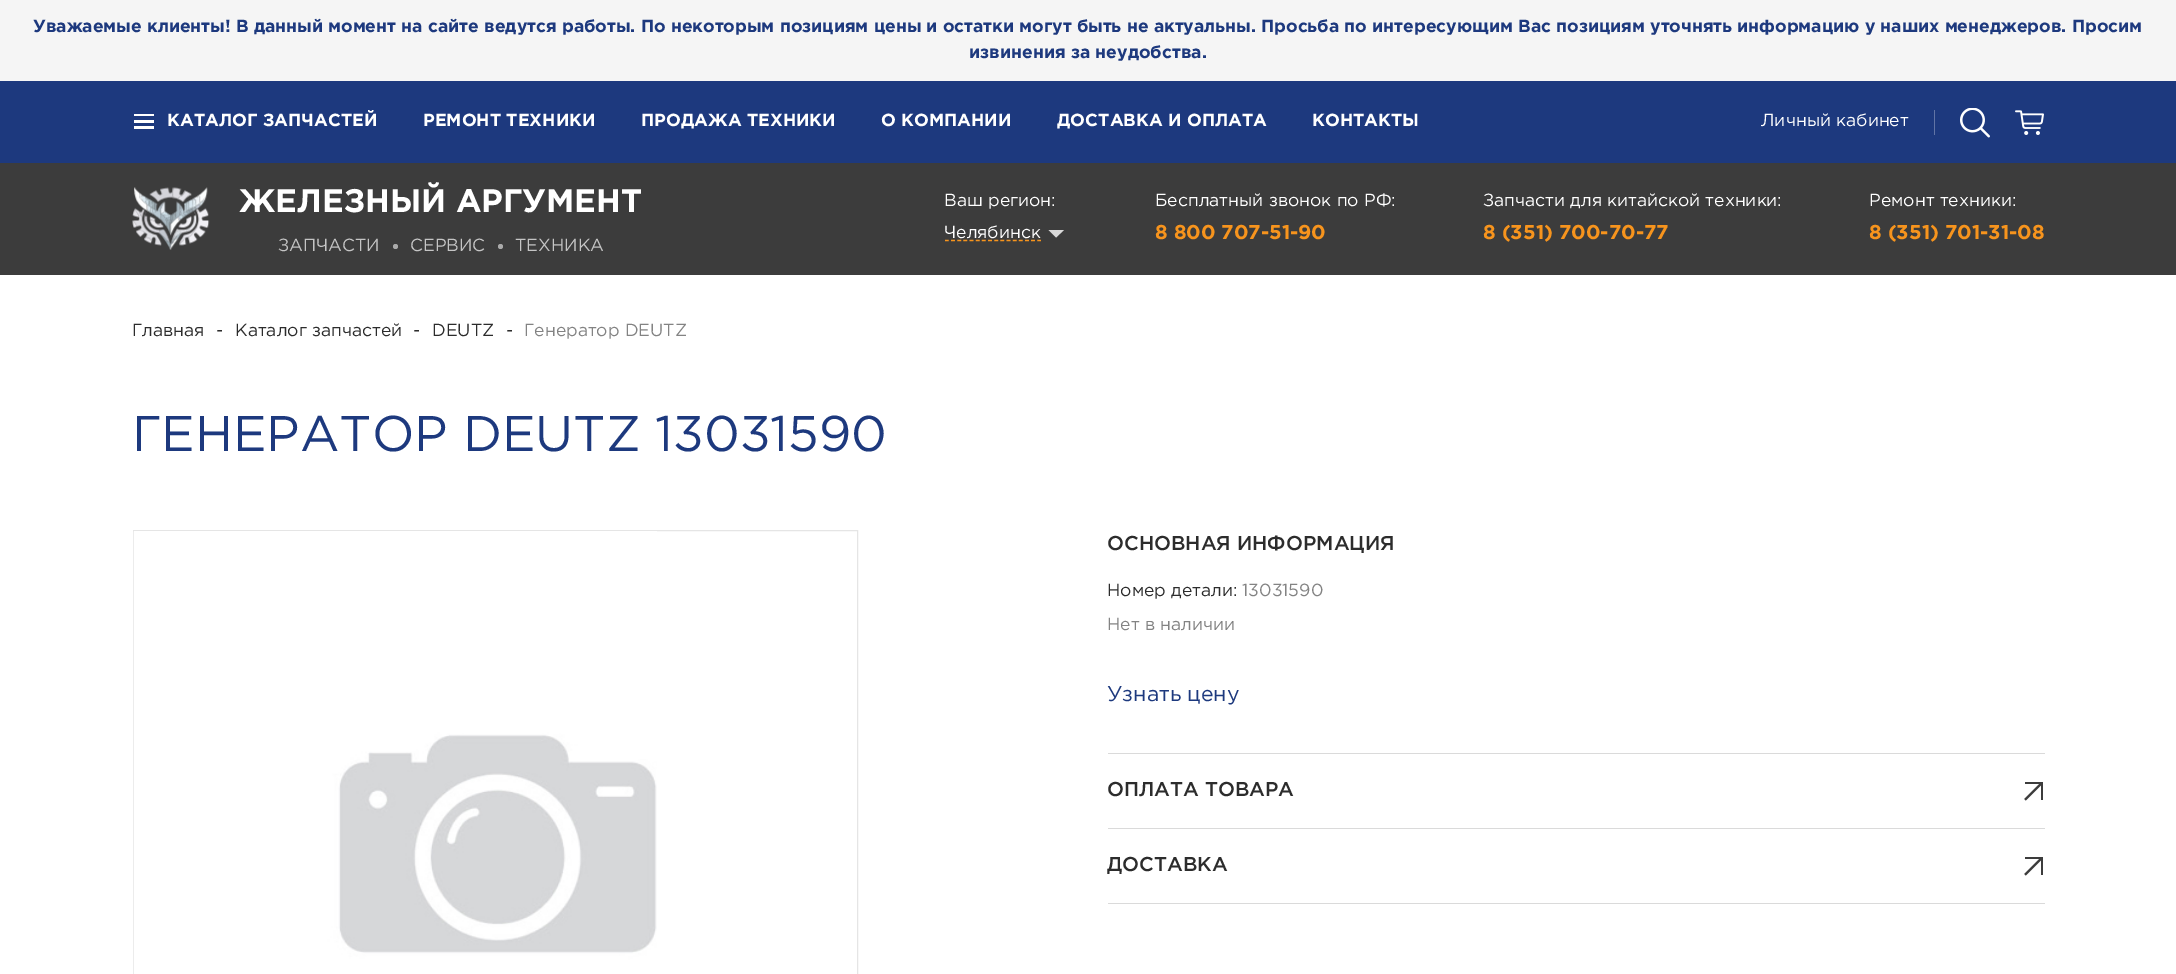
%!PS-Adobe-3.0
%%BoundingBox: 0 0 2176 974
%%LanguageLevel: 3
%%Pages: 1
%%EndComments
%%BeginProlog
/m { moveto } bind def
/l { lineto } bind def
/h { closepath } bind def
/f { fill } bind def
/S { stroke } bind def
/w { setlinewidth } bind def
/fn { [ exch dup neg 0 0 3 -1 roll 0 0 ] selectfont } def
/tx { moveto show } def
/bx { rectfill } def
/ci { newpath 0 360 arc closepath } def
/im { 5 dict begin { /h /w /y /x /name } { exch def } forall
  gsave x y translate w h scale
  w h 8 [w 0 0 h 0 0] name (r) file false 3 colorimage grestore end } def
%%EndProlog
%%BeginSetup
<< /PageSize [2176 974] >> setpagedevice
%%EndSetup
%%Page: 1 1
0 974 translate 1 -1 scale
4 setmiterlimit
1 setgray
0 0 2176 974 bx
0.235 setgray
0 163 2176 112 bx
0.961 setgray
0 0 2176 81 bx
/Gotham-Bold 17.5 fn
0.114 0.224 0.494 setrgbcolor
(Уважаемые клиенты! В данный момент на сайте ведутся работы. По некоторым позициям цены и остатки могут быть не актуальны. Просьба по интересующим Вас позициям уточнять информацию у наших менеджеров. Просим) 33 32 tx
(извинения за неудобства.) 969 58 tx
0 81 2176 82 bx
1 setgray
134 114 20 2 bx
134 120 20 3 bx
134 126 20 3 bx
(КАТАЛОГ ЗАПЧАСТЕЙ) 167 126 tx
(РЕМОНТ ТЕХНИКИ) 423 126 tx
(ПРОДАЖА ТЕХНИКИ) 641 126 tx
(О КОМПАНИИ) 881 126 tx
(ДОСТАВКА И ОПЛАТА) 1057 126 tx
(КОНТАКТЫ) 1312 126 tx
/Gotham-Regular 17.5 fn
(Личный кабинет) 1761 126 tx
0.38 0.455 0.647 setrgbcolor
1934 110 1 25 bx
(image0.raw) 1960 108 30 30 im
(image1.raw) 2015 110 29 25 im
(image2.raw) 132 187 78 63 im
/Gotham-Bold 32.5 fn
1 setgray
(ЖЕЛЕЗНЫЙ АРГУМЕНТ) 239 212 tx
/Gotham-Regular 17.5 fn
0.773 setgray
(ЗАПЧАСТИ) 278 251 tx
0.667 setgray
395.5 246.5 2.5 ci f
0.773 setgray
(СЕРВИС) 410 251 tx
0.667 setgray
500.5 246.5 2.5 ci f
0.773 setgray
(ТЕХНИКА) 515 251 tx
1 setgray
(Ваш регион:) 944 206 tx
0.851 setgray
1056 237.5 m 1048.5 230 l 1064 230 l h f
1 setgray
(Челябинск) 944 238 tx
0.969 0.58 0.114 setrgbcolor
1.2 w
[3.75 2.41] 0 setdash
945 240.5 m 1041 240.5 l S
1 setgray
(Бесплатный звонок по РФ:) 1155 206 tx
/Gotham-Bold 20 fn
0.969 0.58 0.114 setrgbcolor
(8 800 707-51-90) 1155 239 tx
/Gotham-Regular 17.5 fn
1 setgray
(Запчасти для китайской техники:) 1483 206 tx
/Gotham-Bold 20 fn
0.969 0.58 0.114 setrgbcolor
(8 \(351\) 700-70-77) 1483 239 tx
/Gotham-Regular 17.5 fn
1 setgray
(Ремонт техники:) 1869 206 tx
/Gotham-Bold 20 fn
0.969 0.58 0.114 setrgbcolor
(8 \(351\) 701-31-08) 1869 239 tx
/Gotham-Regular 17.5 fn
0.173 setgray
(Главная) 132 336 tx
(-) 216 336 tx
(Каталог запчастей) 235 336 tx
(-) 413 336 tx
(DEUTZ) 432 336 tx
(-) 506 336 tx
0.514 setgray
(Генератор DEUTZ) 524 336 tx
/Gotham-Regular 50 fn
0.114 0.224 0.494 setrgbcolor
(ГЕНЕРАТОР DEUTZ 13031590) 132 451 tx
0.898 setgray
1 w
[] 0 setdash
133.5 530.5 724 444 rectstroke
(image3.raw) 133 531 524 443 im
/Gotham-Medium 20 fn
0.173 setgray
(ОСНОВНАЯ ИНФОРМАЦИЯ) 1107 550 tx
/Gotham-Regular 17.5 fn
(Номер детали:) 1107 596 tx
0.514 setgray
(13031590) 1242 596 tx
(Нет в наличии) 1107 630 tx
/Gotham-Regular 21.25 fn
0.114 0.224 0.494 setrgbcolor
(Узнать цену) 1107 701 tx
0.855 setgray
1108 903 937 1 bx
1108 753 937 1 bx
(image4.raw) 2024 782 19 19 im
/Gotham-Medium 20 fn
0.173 setgray
(ОПЛАТА ТОВАРА) 1107 796 tx
0.855 setgray
1108 828 937 1 bx
(image4.raw) 2024 857 19 19 im
0.173 setgray
(ДОСТАВКА) 1107 871 tx
showpage
%%EOF
